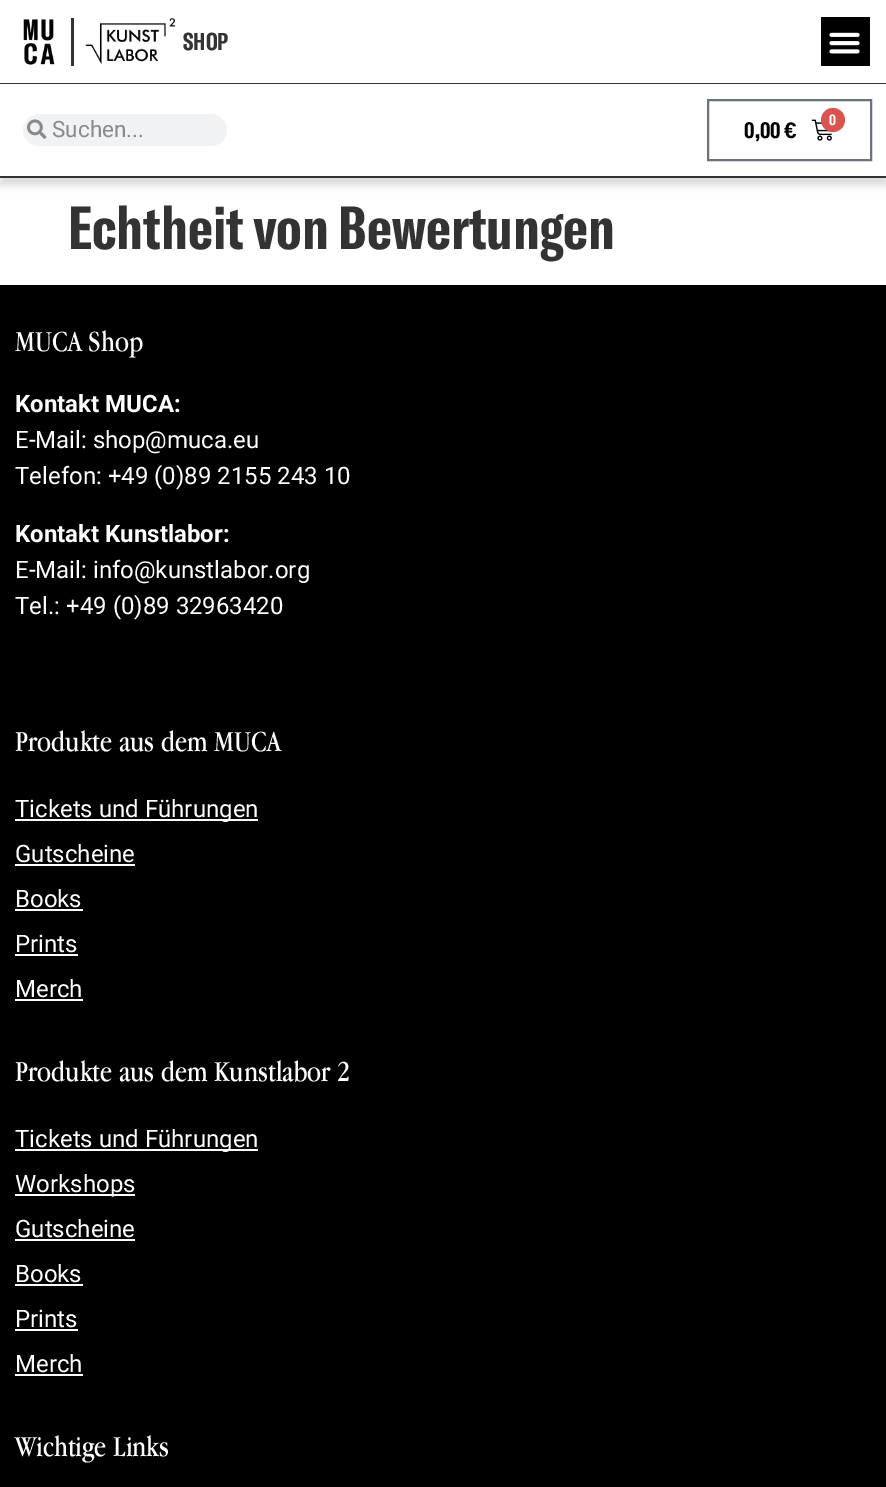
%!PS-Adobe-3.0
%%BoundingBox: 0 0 886 1487
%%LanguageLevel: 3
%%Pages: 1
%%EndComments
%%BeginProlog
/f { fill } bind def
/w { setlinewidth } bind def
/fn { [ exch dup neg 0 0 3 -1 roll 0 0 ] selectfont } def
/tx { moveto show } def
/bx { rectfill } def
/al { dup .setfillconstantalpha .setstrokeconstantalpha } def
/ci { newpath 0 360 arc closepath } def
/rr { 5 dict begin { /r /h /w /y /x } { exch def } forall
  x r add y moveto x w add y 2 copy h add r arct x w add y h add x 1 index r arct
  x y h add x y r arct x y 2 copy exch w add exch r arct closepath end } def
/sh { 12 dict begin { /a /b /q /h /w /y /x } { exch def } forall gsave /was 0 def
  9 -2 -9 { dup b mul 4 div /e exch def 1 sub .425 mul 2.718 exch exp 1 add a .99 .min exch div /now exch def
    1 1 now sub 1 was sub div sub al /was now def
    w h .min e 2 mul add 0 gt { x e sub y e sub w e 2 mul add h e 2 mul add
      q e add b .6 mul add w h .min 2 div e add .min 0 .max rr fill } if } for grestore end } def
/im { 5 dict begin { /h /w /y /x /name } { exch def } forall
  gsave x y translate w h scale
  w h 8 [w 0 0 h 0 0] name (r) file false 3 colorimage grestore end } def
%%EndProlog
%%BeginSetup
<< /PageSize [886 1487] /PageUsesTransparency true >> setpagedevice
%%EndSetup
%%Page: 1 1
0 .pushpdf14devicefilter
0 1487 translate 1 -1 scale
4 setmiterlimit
1 setgray
0 0 886 1487 bx
0.2 setgray
0 83 886 1 bx
71 18 3 48 bx
(image0.raw) 23 19 32 46 im
(image1.raw) 85 18 91 46 im
/GTAmerica-Bold 24 fn
(SHOP) 183 50 tx
0 setgray
821 17 49 49 bx
(image2.raw) 829 32 31 22 im
0 92 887 93 0 4 0.15 sh
1 setgray
0 86 886 90 bx
0.2 setgray
0 176 886 2 bx
0.945 0.949 0.953 setrgbcolor
23 114 204 32 16 rr f
(image3.raw) 27 119 20 20 im
/Roboto-Regular 22.5 fn
0.525 0.541 0.557 setrgbcolor
(Suchen...) 52 137 tx
0.412 0.447 0.49 setrgbcolor
2 w
708 100 163 60 rectstroke
(image4.raw) 811 119 21 22 im
0.851 0.325 0.31 setrgbcolor
833 120 12 ci f
/GTAmerica-Bold 15 fn
1 setgray
(0) 829 125 tx
/GTAmerica-Bold 22.5 fn
0 setgray
(0,00) 744 138 tx
/LiberationSans-Bold 22.5 fn
(€) 784 138 tx
/GTAmerica-Bold 60 fn
0.2 setgray
(Echtheit von Bewertungen) 68 249 tx
0 setgray
0 285 886 1202 bx
/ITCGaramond-Regular 30 fn
1 setgray
(MUCA Shop) 15 351 tx
/Roboto-Bold 24 fn
(Kontakt MUCA:) 15 412 tx
/Roboto-Regular 24 fn
(E-Mail: shop@muca.eu) 15 448 tx
(Telefon: +49 \(0\)89 2155 243 10) 15 484 tx
/Roboto-Bold 24 fn
(Kontakt Kunstlabor:) 15 542 tx
/Roboto-Regular 24 fn
(E-Mail: info@kunstlabor.org) 15 578 tx
(Tel.: +49 \(0\)89 32963420) 15 614 tx
/ITCGaramond-Regular 30 fn
(Produkte aus dem MUCA) 15 751 tx
15 819 243 2 bx
/Roboto-Regular 24 fn
(Tickets und Führungen) 15 817 tx
(Gutscheine) 15 862 tx
15 864 120 2 bx
(Books) 15 907 tx
15 909 68 2 bx
(Prints) 15 952 tx
15 954 63 2 bx
(Merch) 15 997 tx
15 999 68 2 bx
/ITCGaramond-Regular 30 fn
(Produkte aus dem Kunstlabor 2) 15 1081 tx
15 1149 243 2 bx
/Roboto-Regular 24 fn
(Tickets und Führungen) 15 1147 tx
15 1194 120 2 bx
(Workshops) 15 1192 tx
(Gutscheine) 15 1237 tx
15 1239 120 2 bx
(Books) 15 1282 tx
15 1284 68 2 bx
(Prints) 15 1327 tx
15 1329 63 2 bx
(Merch) 15 1372 tx
15 1374 68 2 bx
/ITCGaramond-Regular 30 fn
(Wichtige Links) 15 1456 tx
.poppdf14devicefilter showpage
%%EOF
